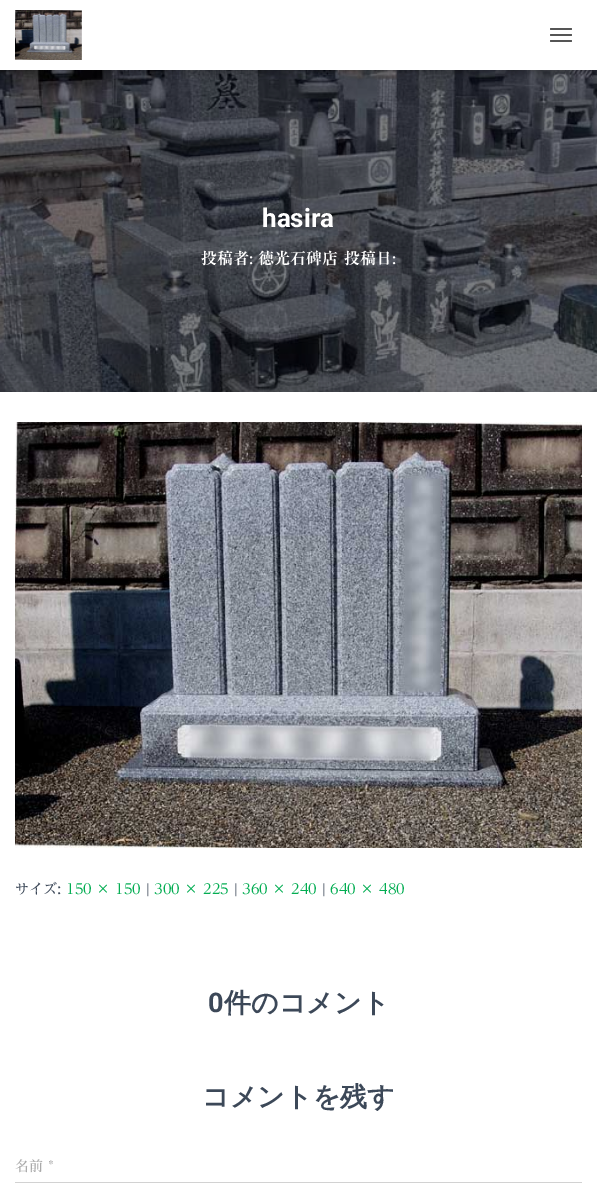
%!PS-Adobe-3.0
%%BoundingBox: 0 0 597 1190
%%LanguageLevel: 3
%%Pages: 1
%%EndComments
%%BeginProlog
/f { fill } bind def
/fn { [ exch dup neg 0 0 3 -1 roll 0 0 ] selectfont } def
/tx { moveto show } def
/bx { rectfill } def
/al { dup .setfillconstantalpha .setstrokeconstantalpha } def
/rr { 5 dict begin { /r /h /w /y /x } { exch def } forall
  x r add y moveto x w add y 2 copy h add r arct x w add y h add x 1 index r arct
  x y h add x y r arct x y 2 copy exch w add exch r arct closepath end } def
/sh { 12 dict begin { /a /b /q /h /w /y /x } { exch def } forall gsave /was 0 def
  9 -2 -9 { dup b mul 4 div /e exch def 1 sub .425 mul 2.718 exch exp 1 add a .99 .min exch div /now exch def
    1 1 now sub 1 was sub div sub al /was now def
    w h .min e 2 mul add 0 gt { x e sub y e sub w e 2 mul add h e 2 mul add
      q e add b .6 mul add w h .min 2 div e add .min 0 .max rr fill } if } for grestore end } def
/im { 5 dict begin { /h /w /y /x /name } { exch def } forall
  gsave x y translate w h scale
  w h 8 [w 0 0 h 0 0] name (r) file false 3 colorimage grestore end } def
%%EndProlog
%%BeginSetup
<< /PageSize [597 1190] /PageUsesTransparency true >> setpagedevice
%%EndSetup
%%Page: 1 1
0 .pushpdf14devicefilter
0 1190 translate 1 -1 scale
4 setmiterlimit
1 setgray
0 0 597 1190 bx
(image1.raw) 0 70 597 322 im
0 setgray
2 6 593 66 0 2.5 0.1 sh
0 1 597 70 0 5 0.12 sh
6 7 585 58 0 5 0.42 sh
1 setgray
0 0 597 70 bx
(image0.raw) 15 10 67 50 im
0.333 setgray
550 28 22 2 1 rr f
550 34 22 2 1 rr f
550 40 22 2 1 rr f
/Roboto-Bold 26 fn
1 setgray
(hasira) 262 227 tx
/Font-Medium 16 fn
(投稿者: 徳光石碑店 投稿日:) 201 264 tx
0 setgray
-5 393 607 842 0 15 0.12 sh
1 setgray
0 392 597 798 bx
(image2.raw) 15 422 567 426 im
/Font-Regular 14 fn
0.235 0.282 0.345 setrgbcolor
(サイズ:) 15 894 tx
0.012 0.678 0.322 setrgbcolor
(150 × 150) 66 894 tx
0.235 0.282 0.345 setrgbcolor
(|) 146 894 tx
0.012 0.678 0.322 setrgbcolor
(300 × 225) 154 894 tx
0.235 0.282 0.345 setrgbcolor
(|) 234 894 tx
0.012 0.678 0.322 setrgbcolor
(360 × 240) 242 894 tx
0.235 0.282 0.345 setrgbcolor
(|) 322 894 tx
0.012 0.678 0.322 setrgbcolor
(640 × 480) 330 894 tx
/RobotoSlab-Bold 27 fn
0.235 0.282 0.345 setrgbcolor
(0) 208 1012 tx
/WenQuanYiZenHei-Bold 27 fn
(件のコメント) 224 1012 tx
(コメントを残す) 202 1106 tx
/Font-Regular 14 fn
0.667 setgray
(名前 *) 15 1171 tx
0.824 setgray
15 1182 567 1 bx
.poppdf14devicefilter showpage
%%EOF
